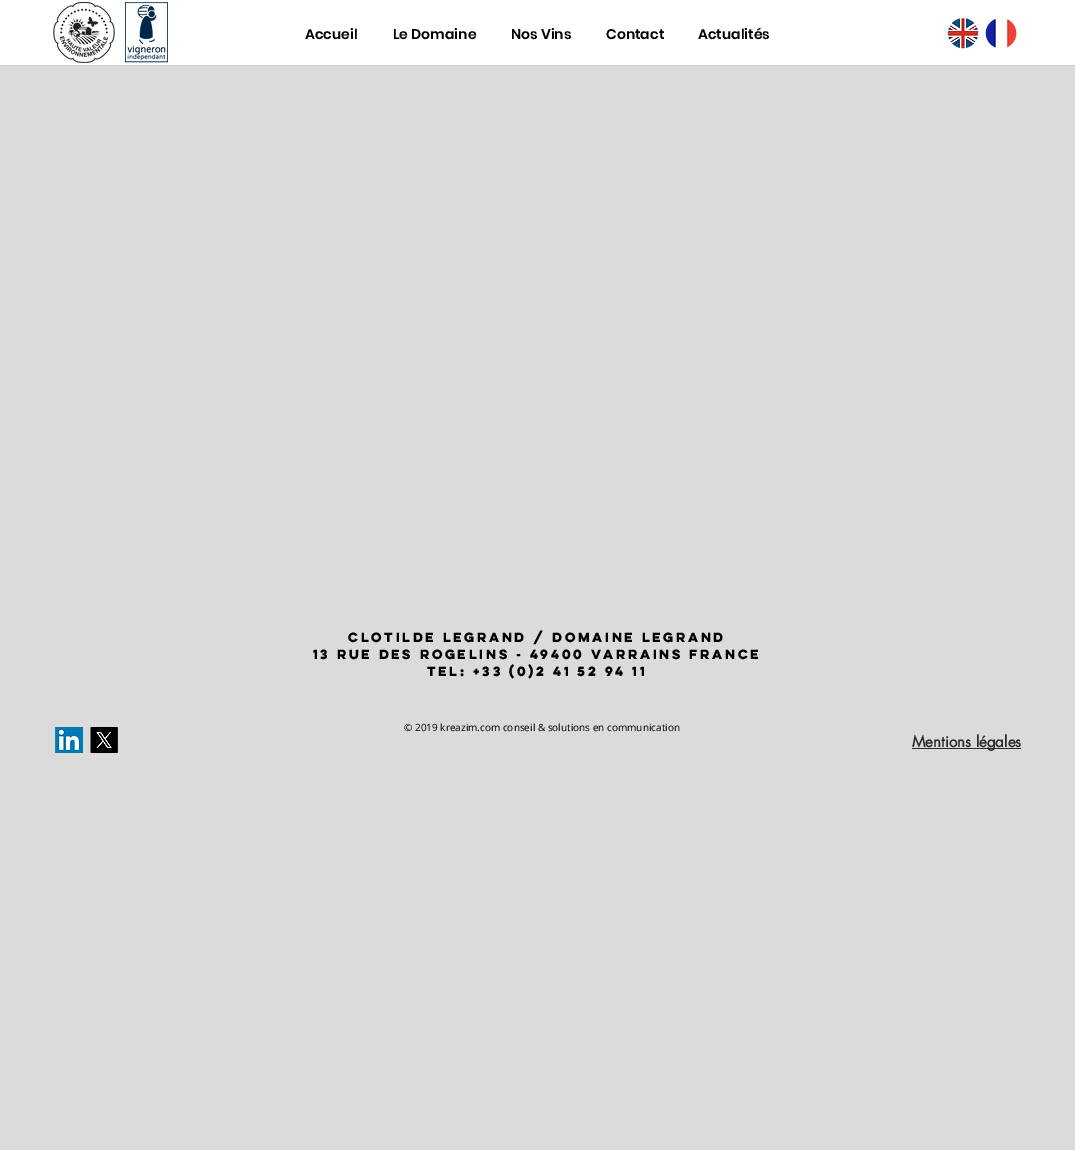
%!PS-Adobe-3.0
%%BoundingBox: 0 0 1075 1150
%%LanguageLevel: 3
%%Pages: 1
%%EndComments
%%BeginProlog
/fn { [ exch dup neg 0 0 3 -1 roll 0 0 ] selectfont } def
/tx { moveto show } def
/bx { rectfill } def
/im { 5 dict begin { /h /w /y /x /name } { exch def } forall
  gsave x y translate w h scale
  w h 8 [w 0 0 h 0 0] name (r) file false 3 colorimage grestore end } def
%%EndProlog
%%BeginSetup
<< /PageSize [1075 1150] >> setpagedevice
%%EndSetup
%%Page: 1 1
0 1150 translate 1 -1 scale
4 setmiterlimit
0.859 setgray
0 0 1075 1150 bx
0.816 setgray
-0.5 -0.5 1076 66 rectstroke
1 setgray
0 0 1075 65 bx
(image0.raw) 53 2 62 61 im
(image1.raw) 125 2 43 61 im
/Poppins-SemiBold 14 fn
0 setgray
(Accueil) 305 39 tx
(Le Domaine) 393 39 tx
(Nos Vins) 511 39 tx
(Contact) 606 39 tx
(Actualités) 698 39 tx
(image2.raw) 947 18 32 31 im
(image3.raw) 985 18 32 30 im
/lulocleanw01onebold-Bold 12 fn
(Clotilde Legrand / Domaine Legrand) 348 642 tx
(13 rue des Rogelins - 49400 Varrains FRANCE) 313 659 tx
(Tel: +33 \(0\)2 41 52 94 11) 427 676 tx
(image4.raw) 55 727 28 26 im
(image5.raw) 90 727 28 26 im
/OpenSans-Regular 10 fn
(© 2019 kreazim.com conseil & solutions en communication) 404 731 tx
0.161 setgray
912 748 109 1 bx
/futura-Bold 15 fn
(Mentions légales) 912 747 tx
showpage
%%EOF
